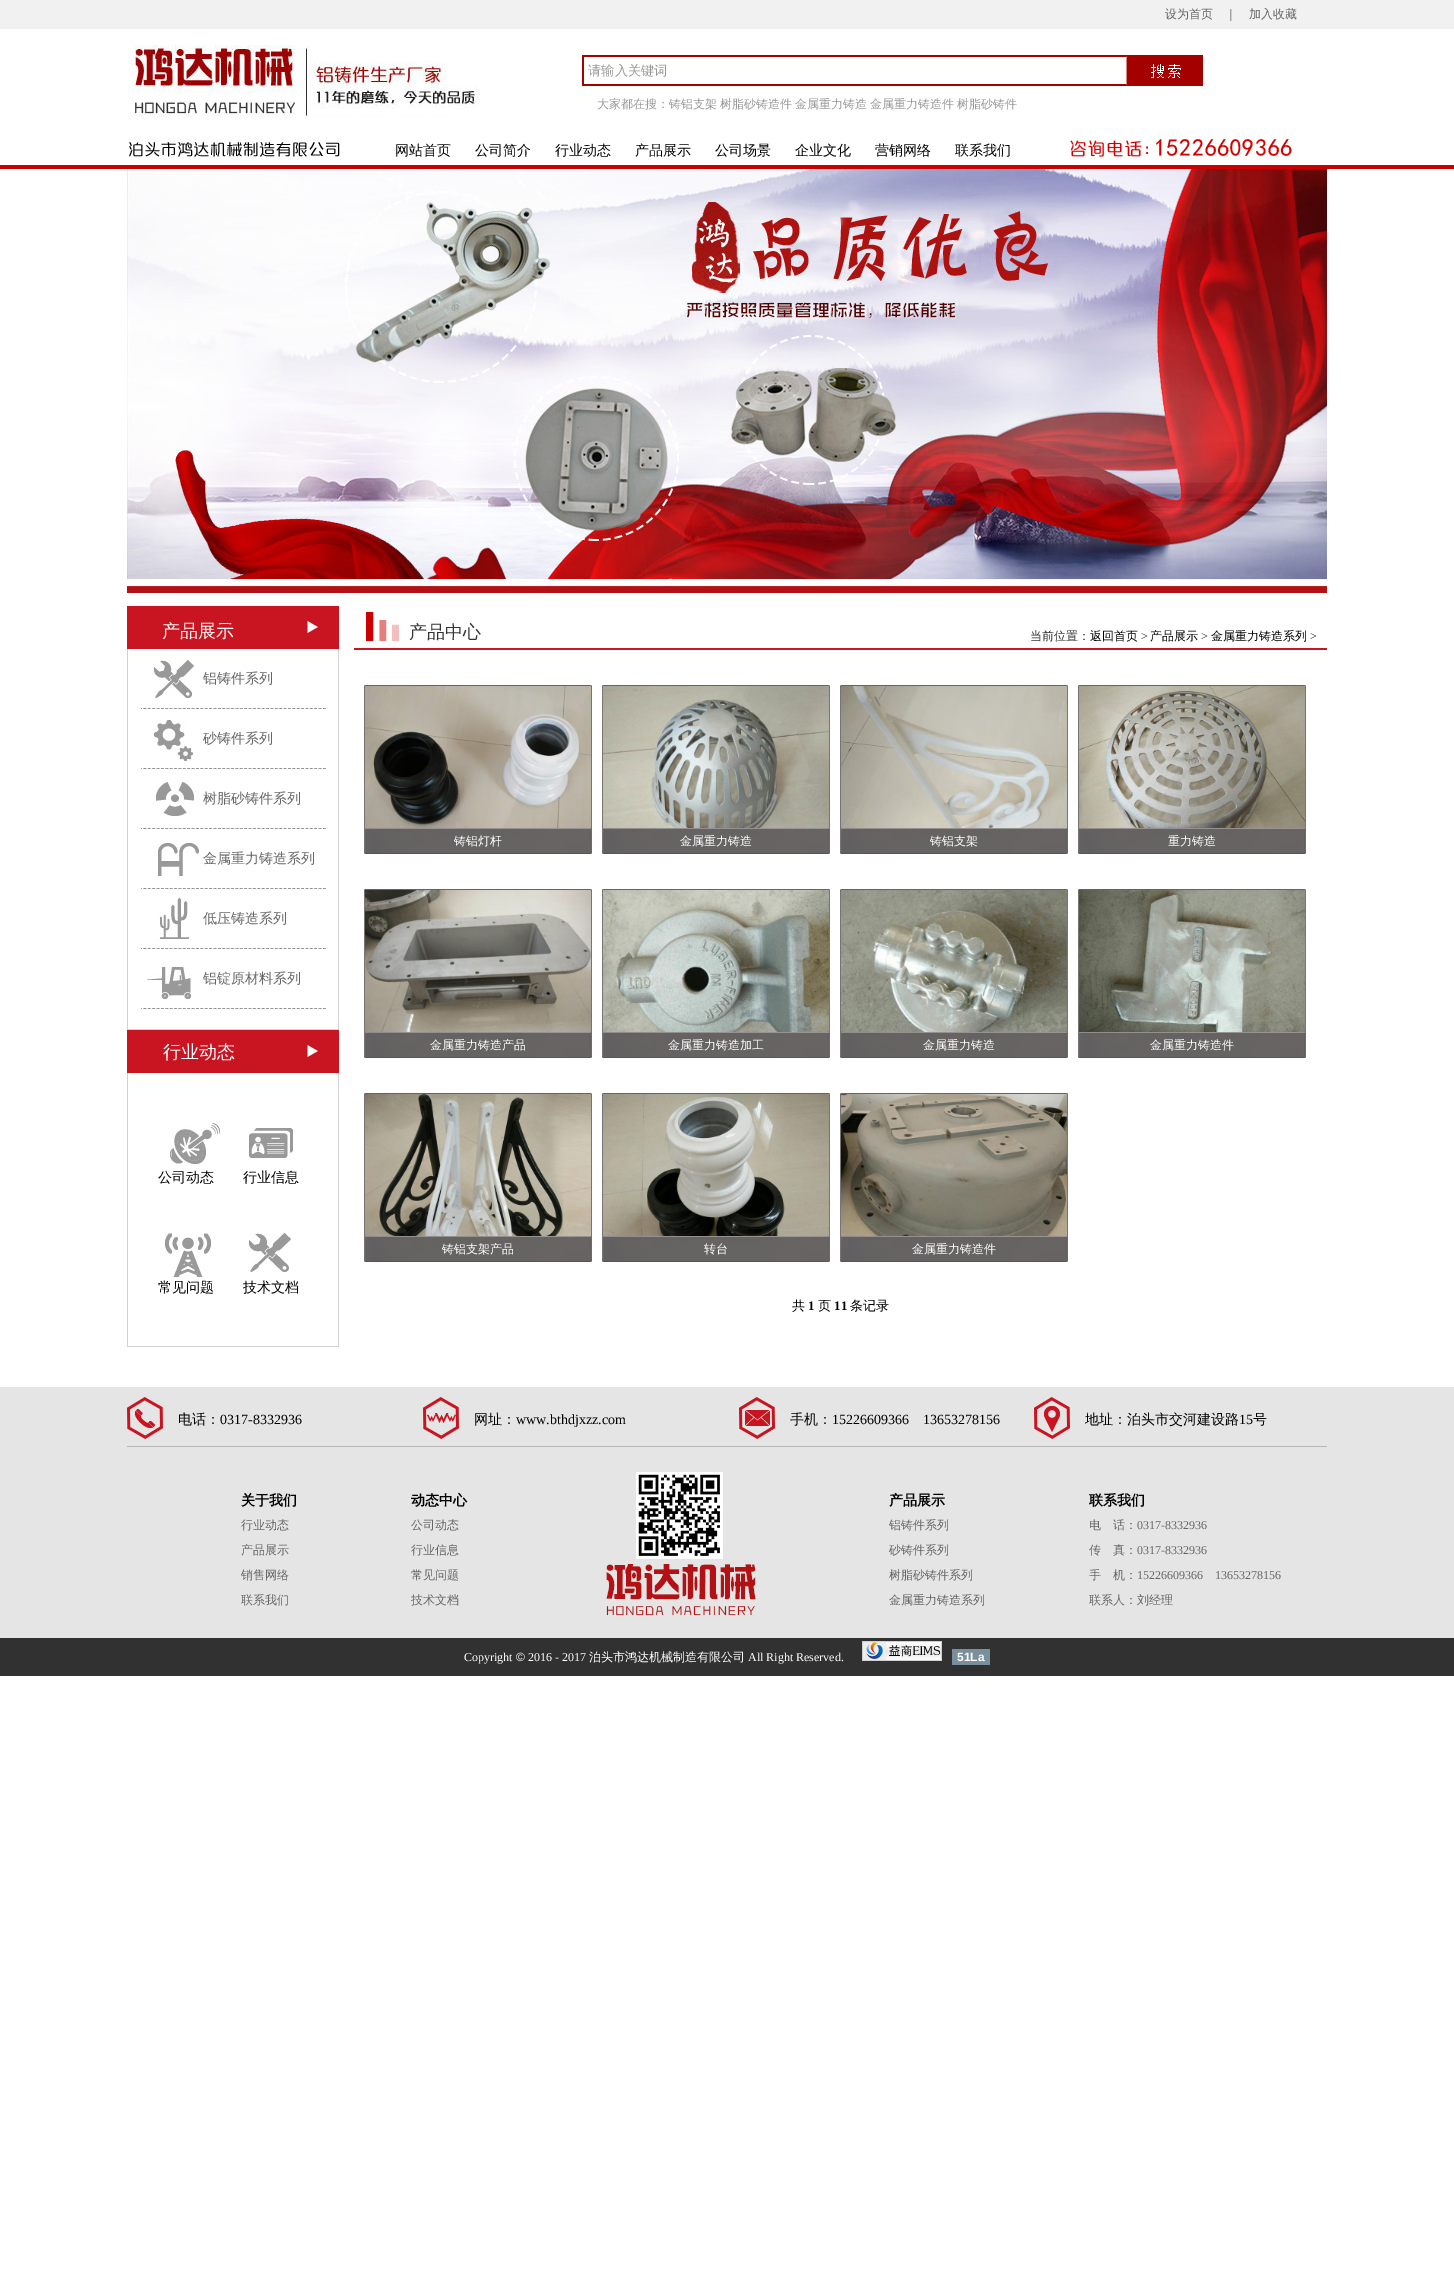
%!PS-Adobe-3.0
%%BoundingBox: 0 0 1454 2294
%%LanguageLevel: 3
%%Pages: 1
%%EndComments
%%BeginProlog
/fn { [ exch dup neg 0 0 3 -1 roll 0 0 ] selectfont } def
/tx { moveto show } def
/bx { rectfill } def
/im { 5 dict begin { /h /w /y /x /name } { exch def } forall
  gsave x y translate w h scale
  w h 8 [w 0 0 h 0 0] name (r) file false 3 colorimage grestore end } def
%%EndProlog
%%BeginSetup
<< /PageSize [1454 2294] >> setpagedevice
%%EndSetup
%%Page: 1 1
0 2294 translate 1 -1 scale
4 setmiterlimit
1 setgray
0 0 1454 2294 bx
(image0.raw) 0 0 1454 169 im
/WenQuanYiZenHei-Medium 12 fn
0.4 setgray
(设为首页) 1165 18 tx
(｜) 1225 18 tx
(加入收藏) 1249 18 tx
(image1.raw) 135 45 344 72 im
0.643 0 0 setrgbcolor
582 55 544 2 bx
582 84 544 2 bx
582 55 2 31 bx
/WenQuanYiZenHei-Medium 13.25 fn
0.6 setgray
(请输入关键词) 588 75 tx
(image2.raw) 1126 55 77 31 im
/WenQuanYiZenHei-Medium 12 fn
(大家都在搜：铸铝支架) 597 108 tx
(树脂砂铸造件) 720 108 tx
(金属重力铸造) 795 108 tx
(金属重力铸造件) 870 108 tx
(树脂砂铸件) 957 108 tx
(image3.raw) 129 142 211 15 im
/WenQuanYiZenHei-Medium 14 fn
0 setgray
(网站首页) 395 155 tx
(公司简介) 475 155 tx
(行业动态) 555 155 tx
(产品展示) 635 155 tx
(公司场景) 715 155 tx
(企业文化) 795 155 tx
(营销网络) 875 155 tx
(联系我们) 955 155 tx
(image4.raw) 1070 136 222 23 im
(image5.raw) 127 169 1200 422 im
(image6.raw) 127 591 1200 2 im
0.788 0.078 0.129 setrgbcolor
127 606 212 43 bx
(image7.raw) 307 621 11 12 im
/WenQuanYiZenHei-Medium 18 fn
1 setgray
(产品展示) 162 637 tx
0.824 setgray
338 649 1 381 bx
127 1029 212 1 bx
127 649 1 381 bx
(image8.raw) 141 707 185 2 im
(image9.raw) 154 658 40 40 im
/WenQuanYiZenHei-Medium 14 fn
0.4 setgray
(铝铸件系列) 203 683 tx
(image8.raw) 141 767 185 2 im
(image10.raw) 154 719 39 45 im
(砂铸件系列) 203 743 tx
(image8.raw) 141 827 185 2 im
(image11.raw) 155 779 39 37 im
(树脂砂铸件系列) 203 803 tx
(image8.raw) 141 887 185 2 im
(image12.raw) 157 842 42 34 im
(金属重力铸造系列) 203 863 tx
(image8.raw) 141 947 185 2 im
(image13.raw) 155 898 36 45 im
(低压铸造系列) 203 923 tx
(image8.raw) 141 1007 185 2 im
(image14.raw) 147 967 44 37 im
(铝锭原材料系列) 203 983 tx
0.788 0.078 0.129 setrgbcolor
127 1030 212 43 bx
(image7.raw) 307 1045 11 12 im
/WenQuanYiZenHei-Medium 18 fn
1 setgray
(行业动态) 163 1058 tx
0.824 setgray
338 1073 1 274 bx
127 1346 212 1 bx
127 1073 1 274 bx
(image15.raw) 170 1123 50 41 im
/WenQuanYiZenHei-Medium 14 fn
0 setgray
(公司动态) 158 1182 tx
(image16.raw) 249 1128 44 30 im
(行业信息) 243 1182 tx
(image17.raw) 165 1233 46 44 im
(常见问题) 158 1292 tx
(image18.raw) 249 1233 42 39 im
(技术文档) 243 1292 tx
(image19.raw) 366 612 33 29 im
0.788 0.078 0.129 setrgbcolor
354 648 973 2 bx
/WenQuanYiZenHei-Medium 18 fn
0.2 setgray
(产品中心) 409 638 tx
/WenQuanYiZenHei-Medium 12 fn
(当前位置：) 1030 640 tx
0 setgray
(返回首页) 1090 640 tx
/LiberationSerif-Regular 12 fn
0.2 setgray
(>) 1141 640 tx
/WenQuanYiZenHei-Medium 12 fn
0 setgray
(产品展示) 1150 640 tx
/LiberationSerif-Regular 12 fn
0.2 setgray
(>) 1201 640 tx
/WenQuanYiZenHei-Medium 12 fn
0 setgray
(金属重力铸造系列) 1211 640 tx
/LiberationSerif-Regular 12 fn
0.2 setgray
(>) 1310 640 tx
(image20.raw) 365 686 226 142 im
(image21.raw) 364 685 228 169 im
/WenQuanYiZenHei-Medium 12 fn
1 setgray
(铸铝灯杆) 454 845 tx
(image22.raw) 603 686 226 142 im
(image23.raw) 602 685 228 169 im
(金属重力铸造) 680 845 tx
(image24.raw) 841 686 226 142 im
(image25.raw) 840 685 228 169 im
(铸铝支架) 930 845 tx
(image26.raw) 1079 686 226 142 im
(image27.raw) 1078 685 228 169 im
(重力铸造) 1168 845 tx
(image28.raw) 365 890 226 142 im
(image29.raw) 364 889 228 169 im
(金属重力铸造产品) 430 1049 tx
(image30.raw) 603 890 226 142 im
(image31.raw) 602 889 228 169 im
(金属重力铸造加工) 668 1049 tx
(image32.raw) 841 890 226 142 im
(image33.raw) 840 889 228 169 im
(金属重力铸造) 923 1049 tx
(image34.raw) 1079 890 226 142 im
(image35.raw) 1078 889 228 169 im
(金属重力铸造件) 1150 1049 tx
(image36.raw) 365 1094 226 142 im
(image37.raw) 364 1093 228 169 im
(铸铝支架产品) 442 1253 tx
(image38.raw) 603 1094 226 142 im
(image39.raw) 602 1093 228 169 im
(转台) 704 1253 tx
(image40.raw) 841 1094 226 142 im
(image41.raw) 840 1093 228 169 im
(金属重力铸造件) 912 1253 tx
/WenQuanYiZenHei-Medium 13 fn
0 setgray
(共) 792 1310 tx
/LiberationSerif-Bold 13 fn
(1) 808 1310 tx
/WenQuanYiZenHei-Medium 13 fn
(页) 818 1310 tx
/LiberationSerif-Bold 13 fn
(11) 834 1310 tx
/WenQuanYiZenHei-Medium 13 fn
(条记录) 850 1310 tx
(image42.raw) 0 1387 1454 289 im
0.71 setgray
127 1446 1200 1 bx
(image43.raw) 127 1397 36 42 im
/WenQuanYiZenHei-Medium 14 fn
0 setgray
(电话：) 178 1424 tx
/LiberationSerif-Regular 14 fn
(0317-8332936) 220 1424 tx
(image44.raw) 423 1397 36 42 im
/WenQuanYiZenHei-Medium 14 fn
(网址：) 474 1424 tx
/LiberationSerif-Regular 14 fn
(www.bthdjxzz.com) 516 1424 tx
(image45.raw) 739 1397 36 42 im
/WenQuanYiZenHei-Medium 14 fn
(手机：) 790 1424 tx
/LiberationSerif-Regular 14 fn
(15226609366) 832 1424 tx
(13653278156) 923 1424 tx
(image46.raw) 1034 1397 36 42 im
/WenQuanYiZenHei-Medium 14 fn
(地址：泊头市交河建设路) 1085 1424 tx
/LiberationSerif-Regular 14 fn
(15) 1239 1424 tx
/WenQuanYiZenHei-Medium 14 fn
(号) 1253 1424 tx
/WenQuanYiZenHei-Bold 14 fn
(关于我们) 241 1505 tx
/WenQuanYiZenHei-Medium 12 fn
0.4 setgray
(行业动态) 241 1529 tx
(产品展示) 241 1554 tx
(销售网络) 241 1579 tx
(联系我们) 241 1604 tx
/WenQuanYiZenHei-Bold 14 fn
0 setgray
(动态中心) 411 1505 tx
/WenQuanYiZenHei-Medium 12 fn
0.4 setgray
(公司动态) 411 1529 tx
(行业信息) 411 1554 tx
(常见问题) 411 1579 tx
(技术文档) 411 1604 tx
(image47.raw) 606 1472 150 144 im
/WenQuanYiZenHei-Bold 14 fn
0 setgray
(产品展示) 889 1505 tx
/WenQuanYiZenHei-Medium 12 fn
0.4 setgray
(铝铸件系列) 889 1529 tx
(砂铸件系列) 889 1554 tx
(树脂砂铸件系列) 889 1579 tx
(金属重力铸造系列) 889 1604 tx
/WenQuanYiZenHei-Bold 14 fn
0 setgray
(联系我们) 1089 1505 tx
/WenQuanYiZenHei-Medium 12 fn
0.4 setgray
(电　话：) 1089 1529 tx
/LiberationSerif-Regular 12 fn
(0317-8332936) 1137 1529 tx
/WenQuanYiZenHei-Medium 12 fn
(传　真：) 1089 1554 tx
/LiberationSerif-Regular 12 fn
(0317-8332936) 1137 1554 tx
/WenQuanYiZenHei-Medium 12 fn
(手　机：) 1089 1579 tx
/LiberationSerif-Regular 12 fn
(15226609366) 1137 1579 tx
(13653278156) 1215 1579 tx
/WenQuanYiZenHei-Medium 12 fn
(联系人：刘经理) 1089 1604 tx
/LiberationSerif-Regular 12 fn
1 setgray
(Copyright) 464 1661 tx
/LiberationSans-Regular 12 fn
(©) 516 1661 tx
/LiberationSerif-Regular 12 fn
(2016 - 2017) 528 1661 tx
/WenQuanYiZenHei-Medium 12 fn
(泊头市鸿达机械制造有限公司) 589 1661 tx
/LiberationSerif-Regular 12 fn
(All Right Reserved.) 748 1661 tx
(image48.raw) 862 1641 80 20 im
0.475 0.565 0.612 setrgbcolor
952 1649 38 16 bx
/LiberationSans-Bold 12 fn
1 setgray
(51La) 957 1661 tx
showpage
%%EOF
